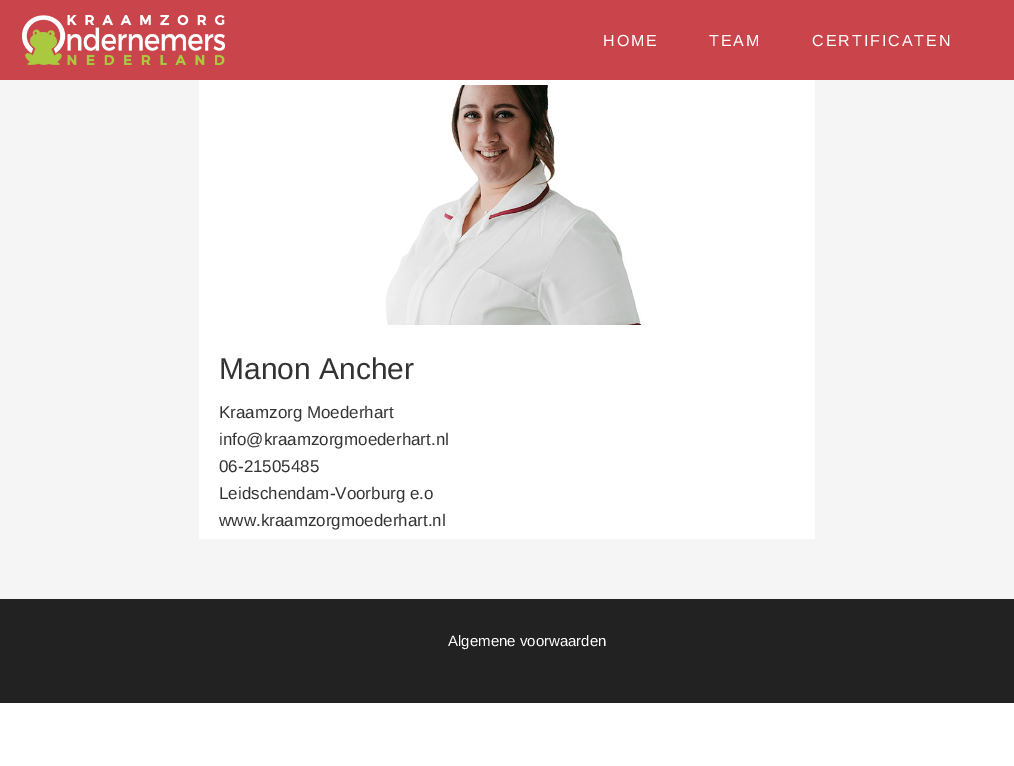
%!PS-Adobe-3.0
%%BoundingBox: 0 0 1014 766
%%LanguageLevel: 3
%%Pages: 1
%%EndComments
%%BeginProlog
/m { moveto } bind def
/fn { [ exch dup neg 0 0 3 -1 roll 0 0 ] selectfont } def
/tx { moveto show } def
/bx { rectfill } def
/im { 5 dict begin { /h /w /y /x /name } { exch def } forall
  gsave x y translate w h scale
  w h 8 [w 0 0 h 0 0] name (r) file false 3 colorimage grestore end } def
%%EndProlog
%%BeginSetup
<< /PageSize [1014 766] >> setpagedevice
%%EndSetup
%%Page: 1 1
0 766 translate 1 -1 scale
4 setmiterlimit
1 setgray
0 0 1014 766 bx
0.792 0.271 0.294 setrgbcolor
0 0 1014 80 bx
(image0.raw) 22 15 203 50 im
/LiberationSans-Regular 16 fn
1 setgray
603 46 m 2 0 (HOME) ashow
709 46 m 2 0 (TEAM) ashow
812 46 m 2 0 (CERTIFICATEN) ashow
0.961 setgray
0 80 1014 519 bx
1 setgray
199 80 616 459 bx
(image1.raw) 386 85 256 240 im
/LiberationSans-Regular 30 fn
0.2 setgray
(Manon Ancher) 219 379 tx
/LiberationSans-Regular 17 fn
(Kraamzorg Moederhart) 219 418 tx
(info@kraamzorgmoederhart.nl) 219 445 tx
(06-21505485) 219 472 tx
(Leidschendam-Voorburg e.o) 219 499 tx
(www.kraamzorgmoederhart.nl) 219 526 tx
0.133 setgray
0 599 1014 104 bx
/LiberationSans-Regular 15 fn
1 setgray
(Algemene voorwaarden) 448 646 tx
showpage
%%EOF
